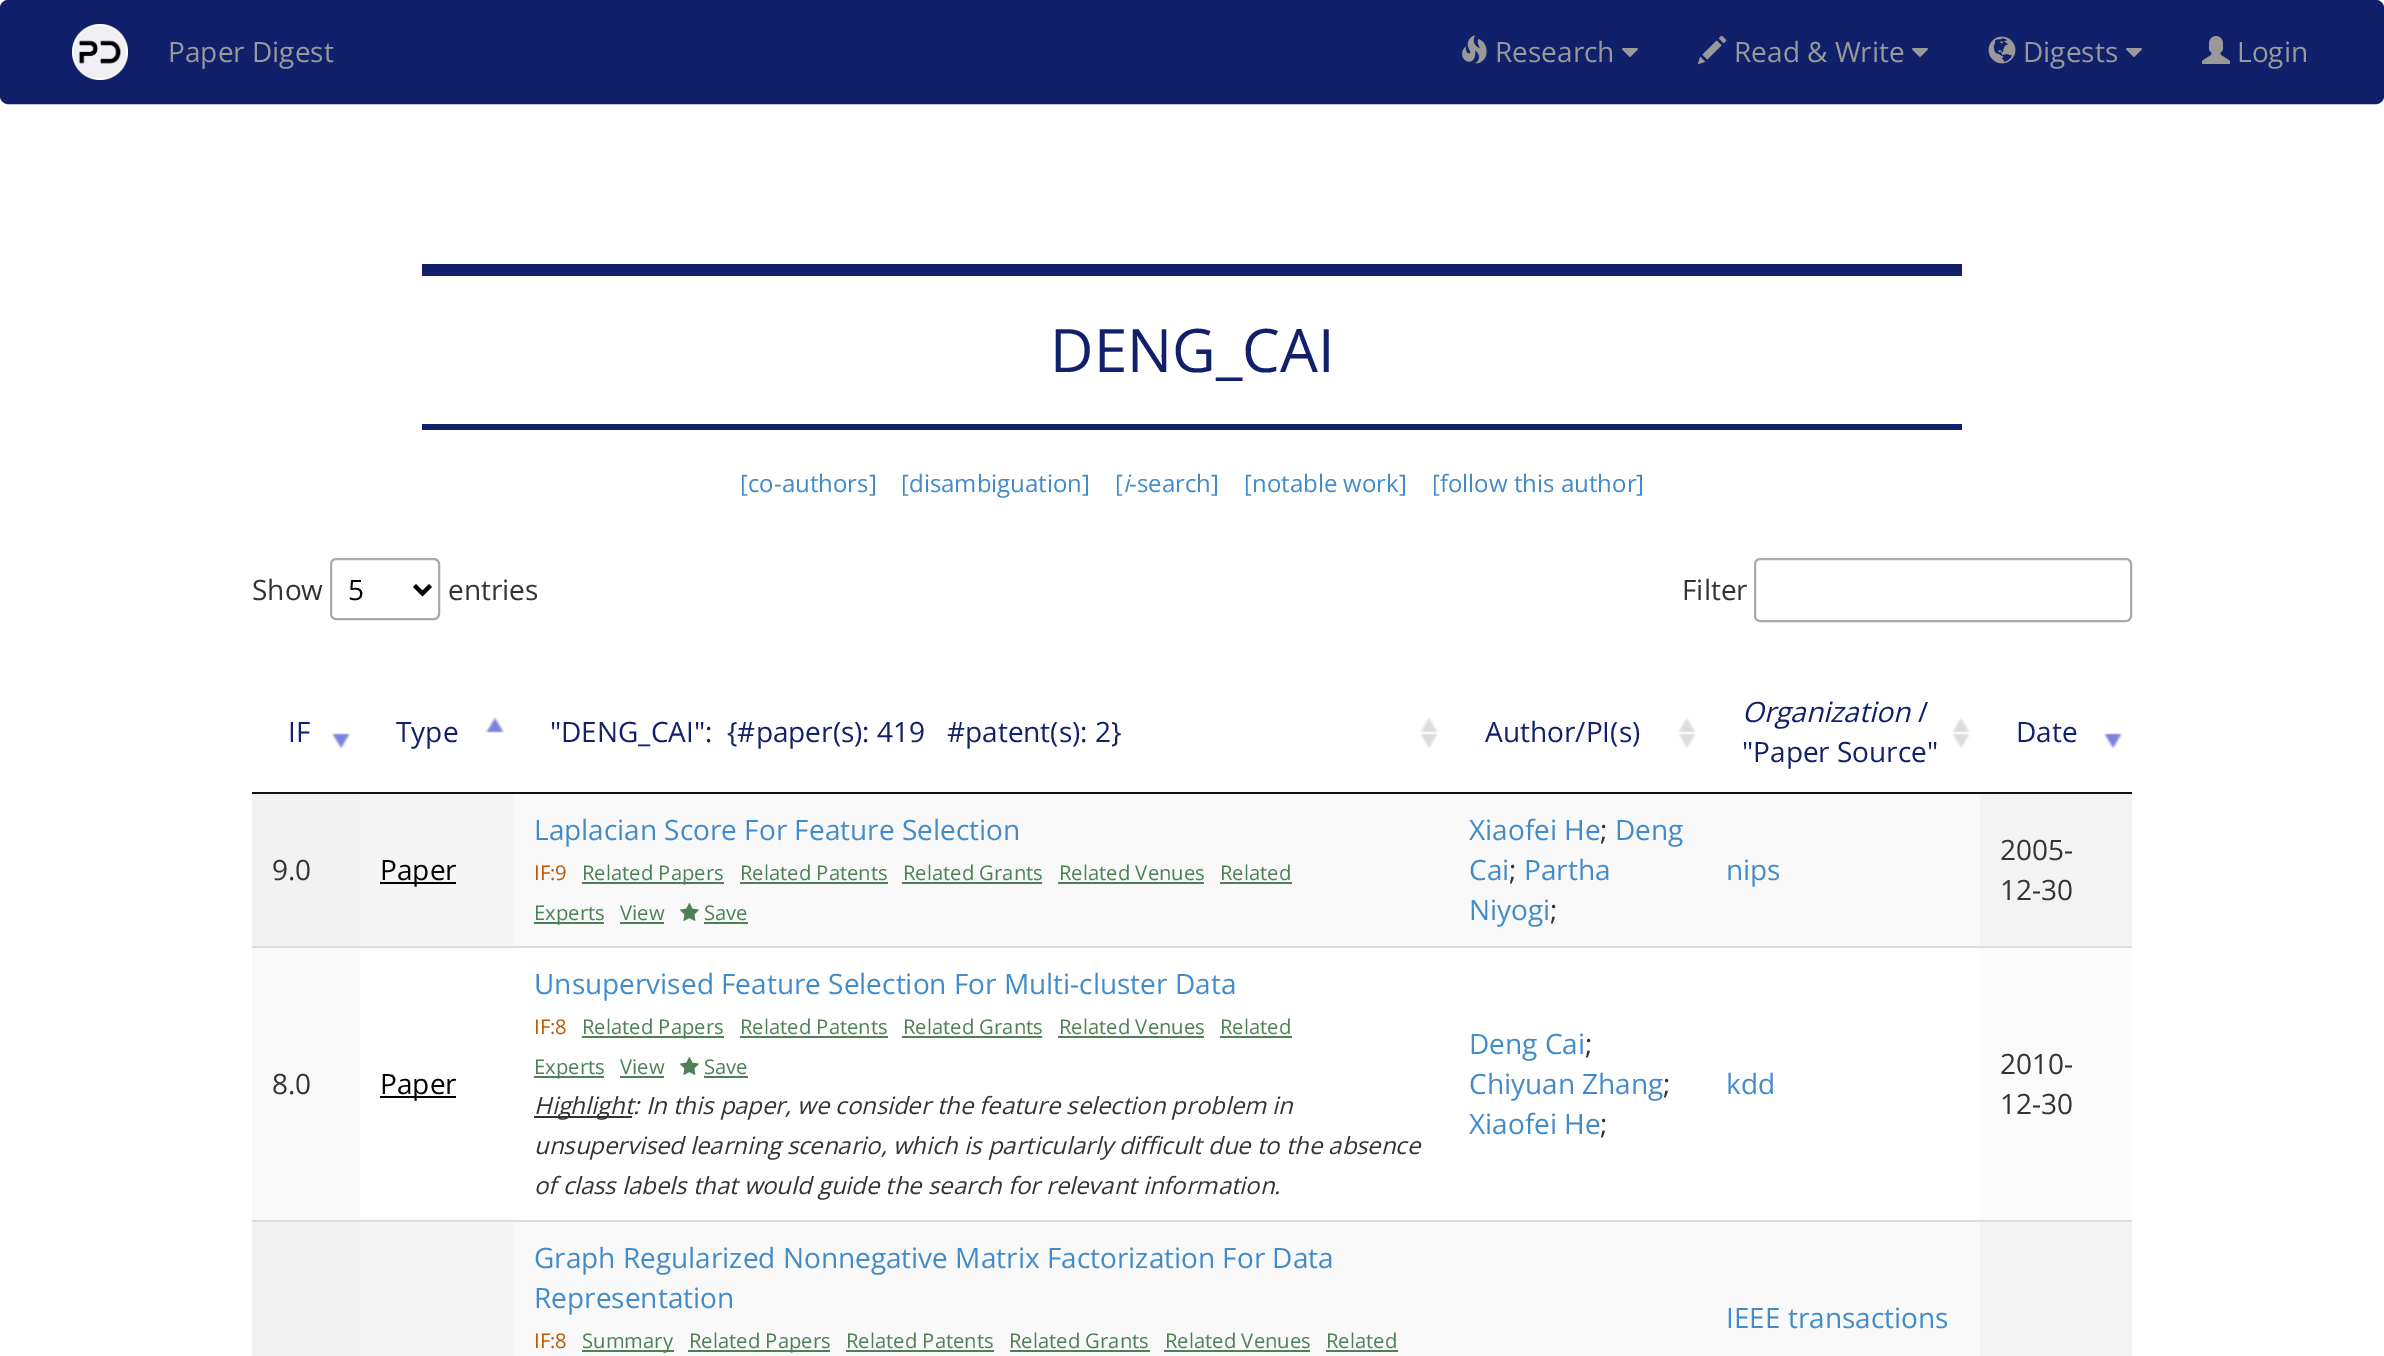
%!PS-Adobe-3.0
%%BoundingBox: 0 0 2384 1356
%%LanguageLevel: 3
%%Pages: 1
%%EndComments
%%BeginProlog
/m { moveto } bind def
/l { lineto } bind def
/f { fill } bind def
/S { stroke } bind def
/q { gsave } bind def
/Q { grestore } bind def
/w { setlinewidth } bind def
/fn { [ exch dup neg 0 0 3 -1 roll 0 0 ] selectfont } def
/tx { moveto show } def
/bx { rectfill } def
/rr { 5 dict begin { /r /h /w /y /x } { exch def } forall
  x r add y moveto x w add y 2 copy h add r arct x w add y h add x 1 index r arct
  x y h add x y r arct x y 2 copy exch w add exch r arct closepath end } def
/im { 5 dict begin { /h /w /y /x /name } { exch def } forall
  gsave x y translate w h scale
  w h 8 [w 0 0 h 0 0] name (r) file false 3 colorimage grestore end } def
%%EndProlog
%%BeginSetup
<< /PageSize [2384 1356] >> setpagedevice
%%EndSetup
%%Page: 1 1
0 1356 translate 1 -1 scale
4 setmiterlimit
1 setgray
0 0 2384 1356 bx
0.063 0.125 0.42 setrgbcolor
1 1 2382 102 7 rr q f Q
2 w
S
(image0.raw) 72 24 56 56 im
/OpenSans-Regular 28 fn
0.6 setgray
(Paper Digest) 168 62 tx
(image1.raw) 1462 35 25 29 im
(Research) 1495 62 tx
(image2.raw) 1622 48 16 9 im
(image3.raw) 1697 35 30 30 im
(Read & Write) 1734 62 tx
(image2.raw) 1912 48 16 9 im
(image4.raw) 1988 36 28 28 im
(Digests) 2023 62 tx
(image2.raw) 2126 48 16 9 im
(image5.raw) 2202 36 28 28 im
(Login) 2237 62 tx
0.063 0.125 0.42 setrgbcolor
422 264 1540 12 bx
/OpenSans-Regular 60 fn
(DENG_CAI) 1050 372 tx
422 424 1540 6 bx
/OpenSans-Regular 24 fn
0.259 0.545 0.792 setrgbcolor
([co-authors]) 740 492 tx
([disambiguation]) 901 492 tx
([) 1115 492 tx
/OpenSans-Italic 24 fn
(i) 1123 492 tx
/OpenSans-Regular 24 fn
(-search]) 1129 492 tx
([notable work]) 1244 492 tx
([follow this author]) 1432 492 tx
/OpenSans-Regular 28 fn
0.2 setgray
(Show) 252 600 tx
0.667 setgray
331 559 108 60 5 rr S
0 setgray
4 w
414.5 585.5 m 422.5 593.5 l 430.5 585.5 l S
(5) 348 600 tx
0.2 setgray
(entries) 448 600 tx
(Filter) 1682 600 tx
0.667 setgray
2 w
1755 559 376 62 5 rr S
(image6.raw) 331 733 20 16 im
0.067 setgray
252 792 1880 2 bx
0.063 0.125 0.42 setrgbcolor
(IF) 288 742 tx
(image7.raw) 485 717 20 16 im
(Type) 396 742 tx
(image8.raw) 1420 717 18 32 im
("DENG_CAI":  {#paper\(s\): 419   #patent\(s\): 2}) 550 742 tx
(image8.raw) 1678 717 18 32 im
(Author/PI\(s\)) 1485 742 tx
(image8.raw) 1952 717 18 32 im
/OpenSans-Italic 28 fn
(Organization) 1742 722 tx
/OpenSans-Regular 28 fn
(/) 1918 722 tx
("Paper Source") 1742 762 tx
(image6.raw) 2103 733 20 16 im
(Date) 2016 742 tx
0.976 setgray
514 794 1466 152 bx
0.945 setgray
252 794 108 152 bx
0.2 setgray
(9.0) 272 880 tx
0.961 setgray
360 794 154 152 bx
0 setgray
380 882 76 2 bx
(Paper) 380 880 tx
0.259 0.545 0.792 setrgbcolor
(Laplacian Score For Feature Selection) 534 840 tx
/OpenSans-Regular 20.25 fn
0.753 0.337 0 setrgbcolor
(IF:9) 534 880 tx
0.302 0.502 0.333 setrgbcolor
582 882 142 2 bx
(Related Papers) 582 880 tx
(Related Patents) 740 880 tx
740 882 148 2 bx
(Related Grants) 903 880 tx
902 882 140 2 bx
(Related Venues) 1059 880 tx
1058 882 146 2 bx
(Related) 1220 880 tx
1220 882 72 2 bx
534 922 70 2 bx
(Experts) 534 920 tx
(View) 620 920 tx
620 922 44 2 bx
(image9.raw) 680 903 19 18 im
(Save) 704 920 tx
704 922 44 2 bx
/OpenSans-Regular 28 fn
0.259 0.545 0.792 setrgbcolor
(Xiaofei He) 1469 840 tx
0.2 setgray
(;) 1600 840 tx
0.259 0.545 0.792 setrgbcolor
(Deng) 1615 840 tx
(Cai) 1469 880 tx
0.2 setgray
(;) 1509 880 tx
0.259 0.545 0.792 setrgbcolor
(Partha) 1524 880 tx
(Niyogi) 1469 920 tx
0.2 setgray
(;) 1550 920 tx
0.259 0.545 0.792 setrgbcolor
(nips) 1726 880 tx
0.953 setgray
1980 794 152 152 bx
0.2 setgray
(2005-) 2000 860 tx
(12-30) 2000 900 tx
0.976 setgray
252 948 108 272 bx
0.867 setgray
252 946 1880 2 bx
0.2 setgray
(8.0) 272 1094 tx
0 setgray
380 1096 76 2 bx
(Paper) 380 1094 tx
0.259 0.545 0.792 setrgbcolor
(Unsupervised Feature Selection For Multi-cluster Data) 534 994 tx
/OpenSans-Regular 20.25 fn
0.753 0.337 0 setrgbcolor
(IF:8) 534 1034 tx
0.302 0.502 0.333 setrgbcolor
582 1036 142 2 bx
(Related Papers) 582 1034 tx
(Related Patents) 740 1034 tx
740 1036 148 2 bx
(Related Grants) 903 1034 tx
902 1036 140 2 bx
(Related Venues) 1059 1034 tx
1058 1036 146 2 bx
(Related) 1220 1034 tx
1220 1036 72 2 bx
534 1076 70 2 bx
(Experts) 534 1074 tx
(View) 620 1074 tx
620 1076 44 2 bx
(image10.raw) 680 1057 19 18 im
(Save) 704 1074 tx
704 1076 44 2 bx
0.2 setgray
534 1116 98 2 bx
/OpenSans-Italic 23.8 fn
(Highlight: In this paper, we consider the feature selection problem in) 534 1114 tx
(unsupervised learning scenario, which is particularly difficult due to the absence) 534 1154 tx
(of class labels that would guide the search for relevant information.) 534 1194 tx
/OpenSans-Regular 28 fn
0.259 0.545 0.792 setrgbcolor
(Deng Cai) 1469 1054 tx
0.2 setgray
(;) 1585 1054 tx
0.259 0.545 0.792 setrgbcolor
(Chiyuan Zhang) 1469 1094 tx
0.2 setgray
(;) 1663 1094 tx
0.259 0.545 0.792 setrgbcolor
(Xiaofei He) 1469 1134 tx
0.2 setgray
(;) 1600 1134 tx
0.259 0.545 0.792 setrgbcolor
(kdd) 1726 1094 tx
0.984 setgray
1980 948 152 272 bx
0.2 setgray
(2010-) 2000 1074 tx
(12-30) 2000 1114 tx
0.976 setgray
514 1222 1466 134 bx
0.945 setgray
252 1222 108 134 bx
0.867 setgray
252 1220 1880 2 bx
0.961 setgray
360 1222 154 134 bx
0.259 0.545 0.792 setrgbcolor
(Graph Regularized Nonnegative Matrix Factorization For Data) 534 1268 tx
(Representation) 534 1308 tx
/OpenSans-Regular 20.25 fn
0.753 0.337 0 setrgbcolor
(IF:8) 534 1348 tx
0.302 0.502 0.333 setrgbcolor
582 1350 92 2 bx
(Summary) 582 1348 tx
688 1350 142 2 bx
(Related Papers) 689 1348 tx
(Related Patents) 846 1348 tx
846 1350 148 2 bx
(Related Grants) 1009 1348 tx
1010 1350 140 2 bx
(Related Venues) 1165 1348 tx
1164 1350 146 2 bx
(Related) 1326 1348 tx
1326 1350 72 2 bx
/OpenSans-Regular 28 fn
0.259 0.545 0.792 setrgbcolor
(IEEE transactions) 1726 1328 tx
0.953 setgray
1980 1222 152 134 bx
showpage
%%EOF
